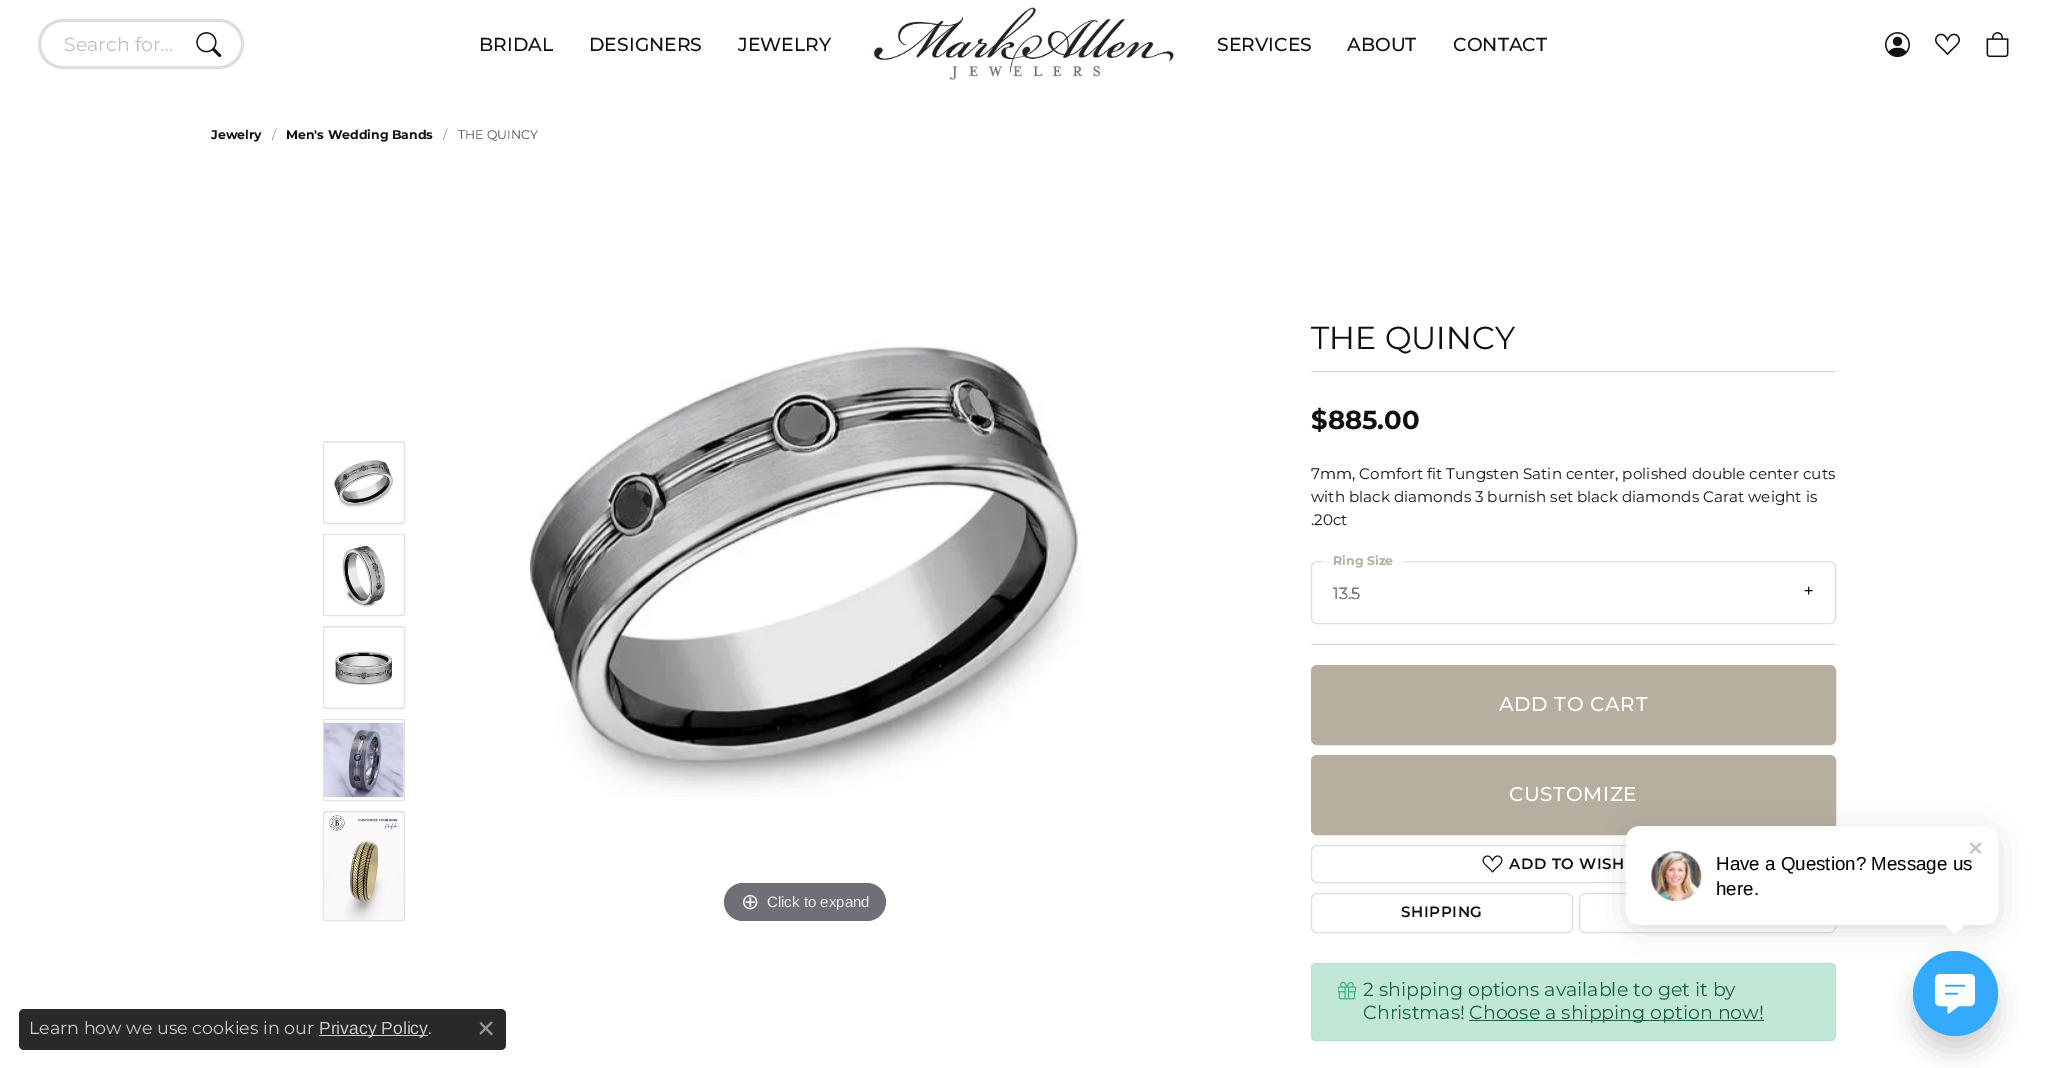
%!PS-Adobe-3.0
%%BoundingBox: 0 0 2047 1068
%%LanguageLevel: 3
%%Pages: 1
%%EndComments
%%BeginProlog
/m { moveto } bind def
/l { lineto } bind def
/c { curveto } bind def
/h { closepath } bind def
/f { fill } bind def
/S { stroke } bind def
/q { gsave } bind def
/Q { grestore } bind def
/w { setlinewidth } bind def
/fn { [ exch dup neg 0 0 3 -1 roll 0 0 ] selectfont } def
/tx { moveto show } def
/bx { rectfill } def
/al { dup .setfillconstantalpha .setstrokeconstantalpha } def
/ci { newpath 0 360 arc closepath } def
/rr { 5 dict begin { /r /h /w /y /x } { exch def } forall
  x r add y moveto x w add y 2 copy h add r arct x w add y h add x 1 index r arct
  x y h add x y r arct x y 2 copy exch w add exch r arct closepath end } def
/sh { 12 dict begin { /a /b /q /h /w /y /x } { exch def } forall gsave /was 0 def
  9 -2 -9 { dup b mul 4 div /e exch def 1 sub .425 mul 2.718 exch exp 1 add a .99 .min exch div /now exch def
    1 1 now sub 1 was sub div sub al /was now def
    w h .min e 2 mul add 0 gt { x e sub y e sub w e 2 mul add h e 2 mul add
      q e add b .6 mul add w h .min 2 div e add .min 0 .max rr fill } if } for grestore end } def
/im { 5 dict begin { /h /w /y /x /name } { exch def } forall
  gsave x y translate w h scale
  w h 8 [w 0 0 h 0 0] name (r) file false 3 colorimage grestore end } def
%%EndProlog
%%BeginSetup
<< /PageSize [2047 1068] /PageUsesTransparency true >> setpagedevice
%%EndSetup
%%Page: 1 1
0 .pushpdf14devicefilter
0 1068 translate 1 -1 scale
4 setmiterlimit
1 setgray
0 0 2047 1068 bx
0.878 0.871 0.863 setrgbcolor
3 w
39.5 20.5 203 47 23.5 rr S
/Montserrat-Regular 19 fn
0.765 0.745 0.729 setrgbcolor
(Search for...) 64 51 tx
(image0.raw) 196 32 26 26 im
(image1.raw) 873 7 301 73 im
(image2.raw) 1885 32 25 26 im
(image3.raw) 1935 33 25 23 im
(image4.raw) 1986 32 23 26 im
/Montserrat-Medium 18.75 fn
0.067 setgray
(BRIDAL) 479 51 tx
(DESIGNERS) 589 51 tx
(JEWELRY) 738 51 tx
(SERVICES) 1217 51 tx
(ABOUT) 1347 51 tx
(CONTACT) 1453 51 tx
/Montserrat-Bold 12.5 fn
(Jewelry) 211 139 tx
/Montserrat-Regular 12.5 fn
0.592 0.561 0.537 setrgbcolor
(/) 272 139 tx
/Montserrat-Bold 12.5 fn
0.067 setgray
(Men's Wedding Bands) 286 139 tx
/Montserrat-Regular 12.5 fn
0.592 0.561 0.537 setrgbcolor
(/) 443 139 tx
0.318 setgray
(THE QUINCY) 458 139 tx
0.953 0.949 0.949 setrgbcolor
323 441 82 83 2.5 rr f
0.07 al
0.067 setgray
1 w
323.5 441.5 81 82 2 rr S
1 al
(image5.raw) 324 443 80 79 im
0.953 0.949 0.949 setrgbcolor
323 534 82 82 2.5 rr f
0.07 al
0.067 setgray
323.5 534.5 81 81 2 rr S
1 al
(image6.raw) 324 535 80 80 im
0.953 0.949 0.949 setrgbcolor
323 626 82 83 2.5 rr f
0.07 al
0.067 setgray
323.5 626.5 81 82 2 rr S
1 al
(image7.raw) 324 628 80 79 im
0.953 0.949 0.949 setrgbcolor
323 719 82 82 2.5 rr f
0.07 al
0.067 setgray
323.5 719.5 81 81 2 rr S
1 al
(image8.raw) 324 720 80 80 im
0.953 0.949 0.949 setrgbcolor
323 811 82 110 2.5 rr f
0.07 al
0.067 setgray
323.5 811.5 81 109 2 rr S
1 al
(image9.raw) 324 813 80 107 im
(image10.raw) 529 342 553 455 im
0.435 0.439 0.467 setrgbcolor
724 883 162 38 19 rr f
/DejaVuSans-Regular 22 fn
0.933 setgray
(⊕) 741 909 tx
/LiberationSans-Regular 15 fn
(Click to expand) 767 907 tx
/Montserrat-Regular 31.75 fn
0.067 setgray
(THE QUINCY) 1311 349 tx
0.863 0.855 0.847 setrgbcolor
1311 371 525 1 bx
/Montserrat-Bold 26 fn
0.067 setgray
($885.00) 1311 429 tx
/Montserrat-Regular 15.2 fn
(7mm, Comfort fit Tungsten Satin center, polished double center cuts) 1311 479 tx
(with black diamonds 3 burnish set black diamonds Carat weight is) 1311 502 tx
(.20ct) 1311 525 tx
0.878 0.871 0.863 setrgbcolor
1311.5 561.5 524 62 5.5 rr S
1 setgray
1323 561 80 1 bx
/Montserrat-Bold 12.5 fn
0.714 0.682 0.624 setrgbcolor
(Ring Size) 1333 565 tx
/Montserrat-Regular 16 fn
0.067 setgray
(13.5) 1333 599 tx
/LiberationSans-Regular 16 fn
(+) 1804 596 tx
/Montserrat-Regular 16 fn
0.541 setgray
(13.5) 1333 599 tx
0.863 0.855 0.847 setrgbcolor
1311 644 525 1 bx
0.714 0.682 0.624 setrgbcolor
1311.5 665.5 524 79 5.5 rr q f Q
S
/Montserrat-Medium 20 fn
1 setgray
1499 711 m 0.6 0 (ADD TO CART) ashow
0.714 0.682 0.624 setrgbcolor
1311.5 755.5 524 79 5.5 rr q f Q
S
1 setgray
1509 801 m 0.6 0 (CUSTOMIZE) ashow
0.878 0.871 0.863 setrgbcolor
1311.5 845.5 524 37 5.5 rr S
(image11.raw) 1482 855 21 18 im
/Montserrat-SemiBold 15 fn
0.067 setgray
1509 869 m 0.6 0 (ADD TO WISH) ashow
0.878 0.871 0.863 setrgbcolor
1311.5 893.5 261 39 5.5 rr S
0.067 setgray
1401 917 m 0.6 0 (SHIPPING) ashow
0.878 0.871 0.863 setrgbcolor
1579.5 893.5 256 39 5.5 rr S
0.757 0.91 0.843 setrgbcolor
1311 963 525 78 5 rr f
0.1 al
0.188 0.694 0.471 setrgbcolor
1311.5 963.5 524 77 4.5 rr S
1 al
(image12.raw) 1338 981 18 19 im
/Montserrat-Regular 19 fn
0.102 0.38 0.259 setrgbcolor
(2 shipping options available to get it by) 1363 996 tx
(Christmas!) 1363 1019 tx
1469 1020 295 1 bx
(Choose a shipping option now!) 1469 1019 tx
0 setgray
1913 966 85 85 42.5 12 0.18 sh
0.2 0.667 0.988 setrgbcolor
1955.5 993.5 42.5 ci f
0 setgray
1631 836 362 89 9 15 0.18 sh
1 setgray
1626 826 372 99 14 rr f
(image13.raw) 1969 842 13 12 im
(image14.raw) 1651 851 51 51 im
/LiberationSans-Regular 18.75 fn
0 setgray
(Have a Question? Message us) 1716 870 tx
(here.) 1716 895 tx
1 setgray
1941 921 m 1951 931 l 1954.5 934.5 1955 934.5 1958.5 931 c 1968 921 l h eofill
0.161 setgray
19 1009 487 41 5 rr f
/Montserrat-Regular 17.5 fn
0.8 setgray
(Learn how we use cookies in our) 29 1034 tx
319 1035 109 1 bx
/LiberationSans-Regular 17.5 fn
(Privacy Policy) 319 1034 tx
/Montserrat-Regular 17.5 fn
(.) 428 1034 tx
(image15.raw) 479 1021 14 15 im
(image16.raw) 1935 974 40 40 im
.poppdf14devicefilter showpage
%%EOF
